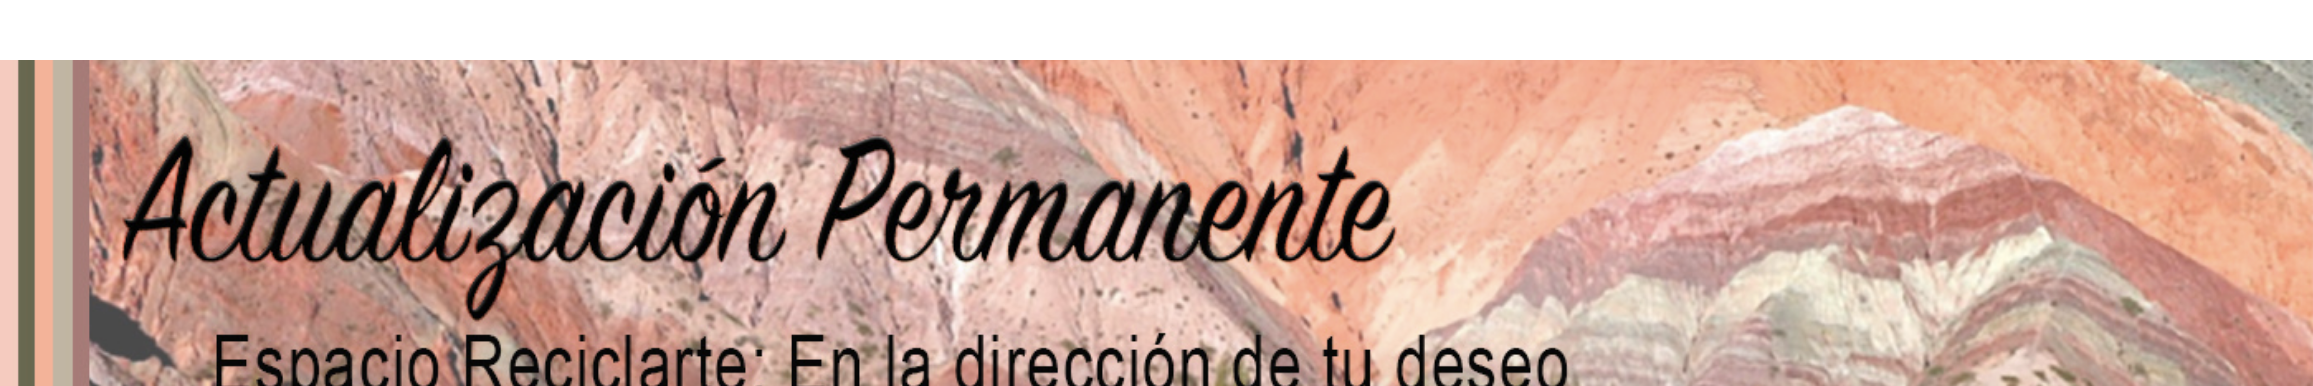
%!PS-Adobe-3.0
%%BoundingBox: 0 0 2313 386
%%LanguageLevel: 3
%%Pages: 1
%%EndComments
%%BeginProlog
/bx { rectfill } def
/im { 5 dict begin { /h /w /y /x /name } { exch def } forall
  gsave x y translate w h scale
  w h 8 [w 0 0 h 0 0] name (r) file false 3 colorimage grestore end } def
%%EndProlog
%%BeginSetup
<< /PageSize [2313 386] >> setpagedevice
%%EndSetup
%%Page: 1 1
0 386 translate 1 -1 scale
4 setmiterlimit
1 setgray
0 0 2313 386 bx
(image0.raw) 0 60 2313 326 im
showpage
%%EOF
